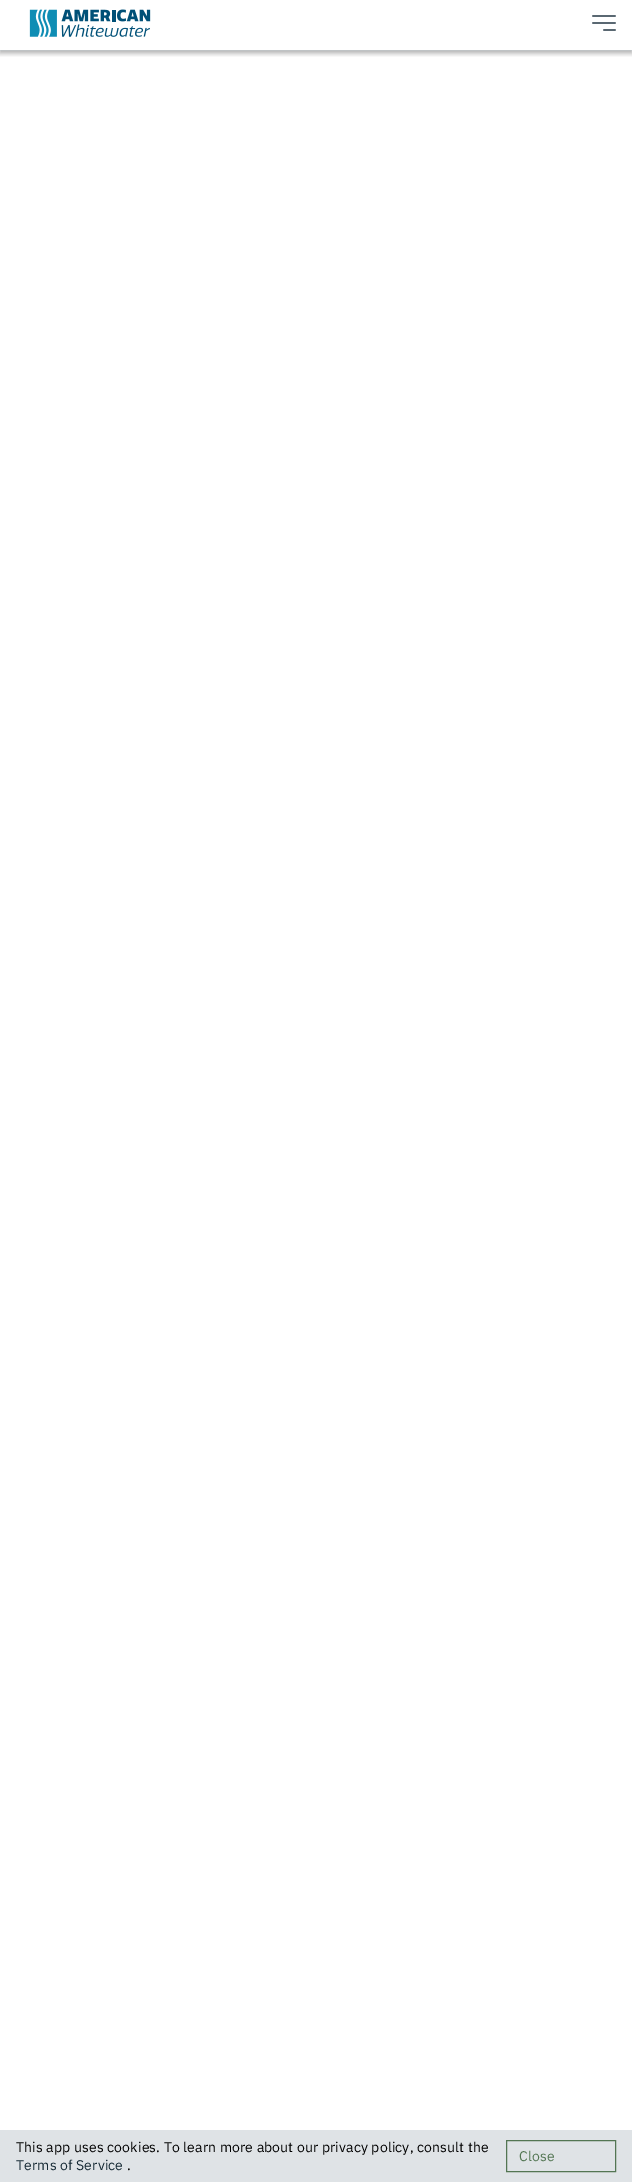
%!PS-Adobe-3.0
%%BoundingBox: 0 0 632 2182
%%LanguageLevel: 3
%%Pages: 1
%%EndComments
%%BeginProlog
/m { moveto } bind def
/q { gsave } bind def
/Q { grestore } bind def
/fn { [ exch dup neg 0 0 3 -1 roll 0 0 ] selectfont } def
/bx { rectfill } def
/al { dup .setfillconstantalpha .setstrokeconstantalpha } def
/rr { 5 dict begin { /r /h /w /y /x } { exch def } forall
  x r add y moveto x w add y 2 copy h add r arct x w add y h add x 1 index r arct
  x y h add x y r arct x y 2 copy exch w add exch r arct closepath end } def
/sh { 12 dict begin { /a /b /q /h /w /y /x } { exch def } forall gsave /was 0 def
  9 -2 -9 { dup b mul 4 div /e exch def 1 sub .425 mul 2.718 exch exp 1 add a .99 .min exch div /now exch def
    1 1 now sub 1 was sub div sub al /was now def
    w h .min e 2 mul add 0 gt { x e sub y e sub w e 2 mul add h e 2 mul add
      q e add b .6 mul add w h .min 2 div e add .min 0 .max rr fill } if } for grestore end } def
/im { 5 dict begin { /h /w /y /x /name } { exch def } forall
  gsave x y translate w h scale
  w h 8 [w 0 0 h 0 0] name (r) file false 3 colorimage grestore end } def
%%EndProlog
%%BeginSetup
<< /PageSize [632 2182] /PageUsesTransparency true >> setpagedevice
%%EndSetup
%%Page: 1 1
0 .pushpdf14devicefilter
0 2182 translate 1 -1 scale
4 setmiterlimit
1 setgray
0 0 632 2182 bx
q
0 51 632 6 rectclip
0 setgray
0 2 632 51 0 3 0.2 sh
Q
0.875 0.89 0.902 setrgbcolor
0 50 632 1 bx
q
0 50 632 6 rectclip
0 setgray
0 2 632 50 0 3 0.2 sh
Q
(image0.raw) 29 9 122 28 im
(image1.raw) 592 15 24 16 im
0 2130 632 52 bx
/IBMPlexSans-Regular 14 fn
0 setgray
16 2152 m 0.15 0 (This app uses cookies. To learn more about our privacy policy, consult the) ashow
0.082 0.161 0.204 setrgbcolor
16 2170 m 0.15 0 (Terms of Service) ashow
0 setgray
127 2170 m 0.15 0 (.) ashow
0.325 0.463 0.325 setrgbcolor
506.5 2140.5 109 31 rectstroke
519 2161 m 0.15 0 (Close) ashow
.poppdf14devicefilter showpage
%%EOF
